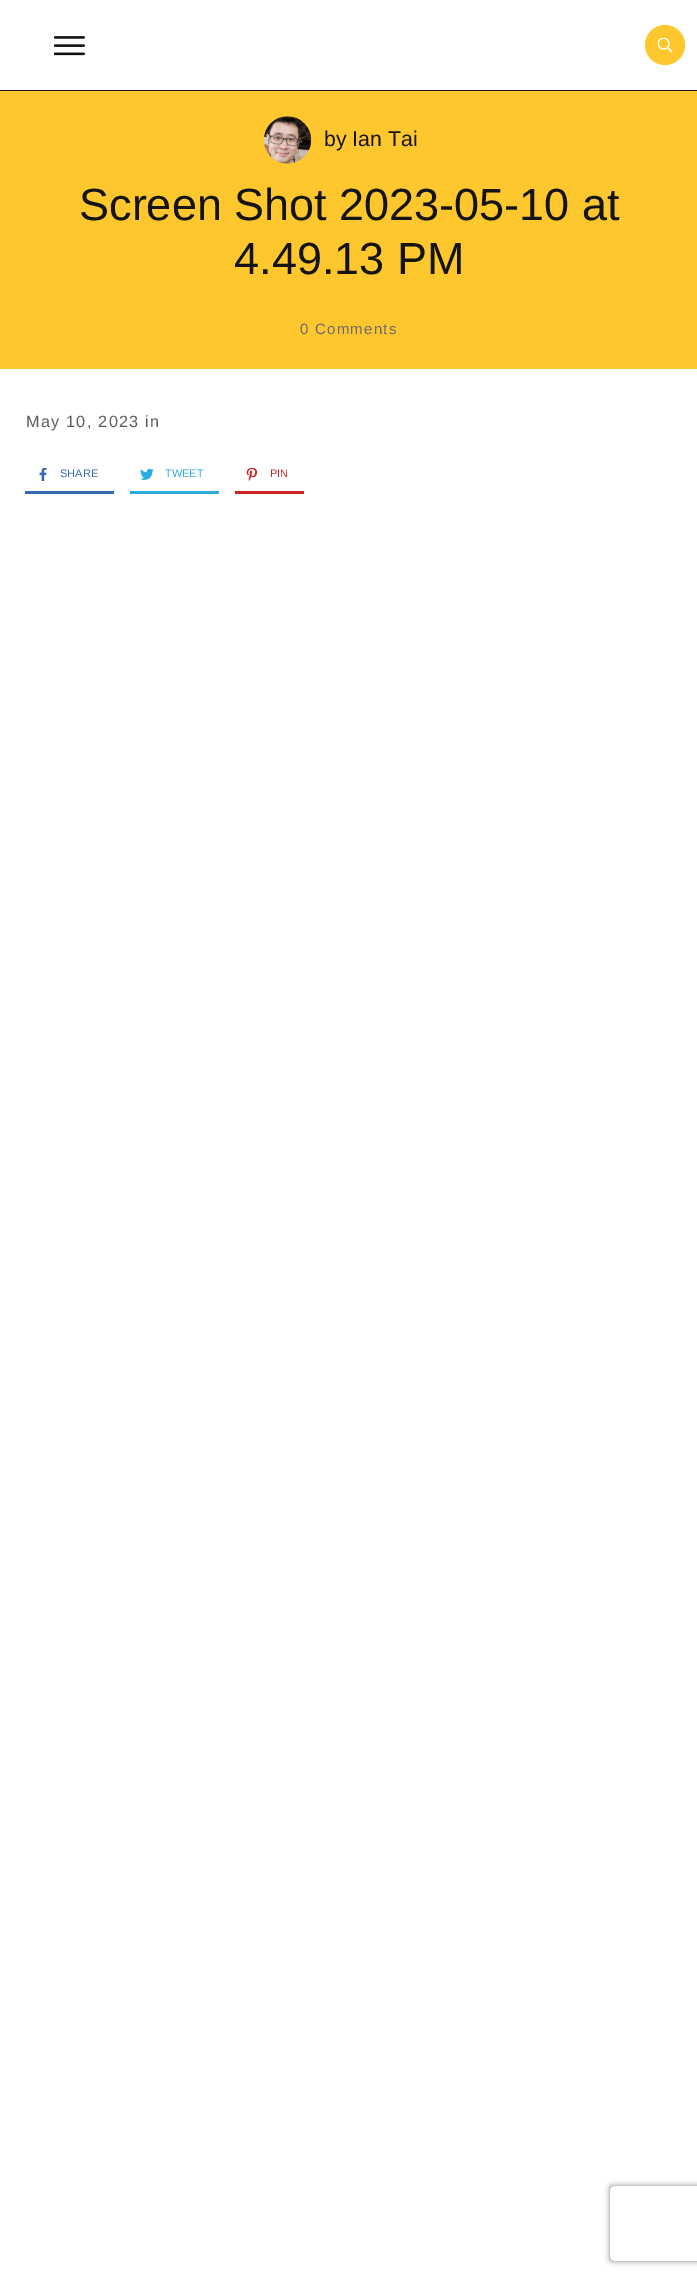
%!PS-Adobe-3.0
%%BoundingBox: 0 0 697 2278
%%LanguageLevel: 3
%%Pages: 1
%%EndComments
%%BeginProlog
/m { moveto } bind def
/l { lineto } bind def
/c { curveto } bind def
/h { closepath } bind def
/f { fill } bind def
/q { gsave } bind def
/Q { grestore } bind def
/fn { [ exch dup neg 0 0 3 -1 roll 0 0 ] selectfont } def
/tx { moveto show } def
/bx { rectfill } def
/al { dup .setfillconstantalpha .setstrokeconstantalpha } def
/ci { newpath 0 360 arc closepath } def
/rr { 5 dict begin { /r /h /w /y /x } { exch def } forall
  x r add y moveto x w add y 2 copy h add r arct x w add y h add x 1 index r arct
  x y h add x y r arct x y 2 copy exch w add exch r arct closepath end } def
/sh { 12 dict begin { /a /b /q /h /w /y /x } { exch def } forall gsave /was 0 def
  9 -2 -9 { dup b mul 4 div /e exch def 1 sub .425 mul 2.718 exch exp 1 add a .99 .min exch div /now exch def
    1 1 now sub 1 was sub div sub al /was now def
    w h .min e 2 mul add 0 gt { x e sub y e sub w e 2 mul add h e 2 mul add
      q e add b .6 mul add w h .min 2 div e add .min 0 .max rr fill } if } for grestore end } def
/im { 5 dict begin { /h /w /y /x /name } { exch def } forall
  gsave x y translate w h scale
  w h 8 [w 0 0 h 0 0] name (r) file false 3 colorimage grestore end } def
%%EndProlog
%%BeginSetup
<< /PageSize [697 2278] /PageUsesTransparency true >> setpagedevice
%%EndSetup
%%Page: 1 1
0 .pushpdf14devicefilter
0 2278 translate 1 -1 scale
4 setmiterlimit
1 setgray
0 0 697 2278 bx
0.078 setgray
0 90 697 1 bx
(image0.raw) 54 36 31 20 im
1 0.78 0.18 setrgbcolor
665 45 20 ci f
(image1.raw) 658 38 15 15 im
0 91 697 278 bx
(image2.raw) 263 116 49 48 im
/LiberationSans-Regular 21.25 fn
0.078 setgray
(by Ian Tai) 324 146 tx
/LiberationSans-Regular 45 fn
(Screen Shot 2023-05-10 at) 79 220 tx
(4.49.13 PM) 234 274 tx
/LiberationSans-Regular 15 fn
0.416 0.42 0.424 setrgbcolor
300 334 m 1.25 0 (0 Comments) ashow
/LiberationSans-Regular 16.25 fn
0.353 0.365 0.376 setrgbcolor
26 427 m 1.25 0 (May 10, 2023 in) ashow
0.208 0.412 0.706 setrgbcolor
25 491 89 3 bx
(image3.raw) 39 468 8 13 im
/LiberationSans-Regular 11 fn
(SHARE) 60 477 tx
0.161 0.675 0.878 setrgbcolor
130 491 89 3 bx
(image4.raw) 140 468 14 12 im
(TWEET) 165 477 tx
0.812 0.129 0.137 setrgbcolor
235 491 69 3 bx
(image5.raw) 246 468 11 13 im
(PIN) 270 477 tx
q
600 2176 m 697 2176 l 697 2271 l 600 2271 l h 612.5 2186 m 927.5 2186 l 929 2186 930 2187 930 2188.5 c 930 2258.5 l 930 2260 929 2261 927.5 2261 c 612.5 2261 l 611 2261 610 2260 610 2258.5 c 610 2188.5 l 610 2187 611 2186 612.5 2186 c h eoclip newpath
0.502 setgray
610 2186 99 75 2.5 3 1 sh
Q
.poppdf14devicefilter showpage
%%EOF
